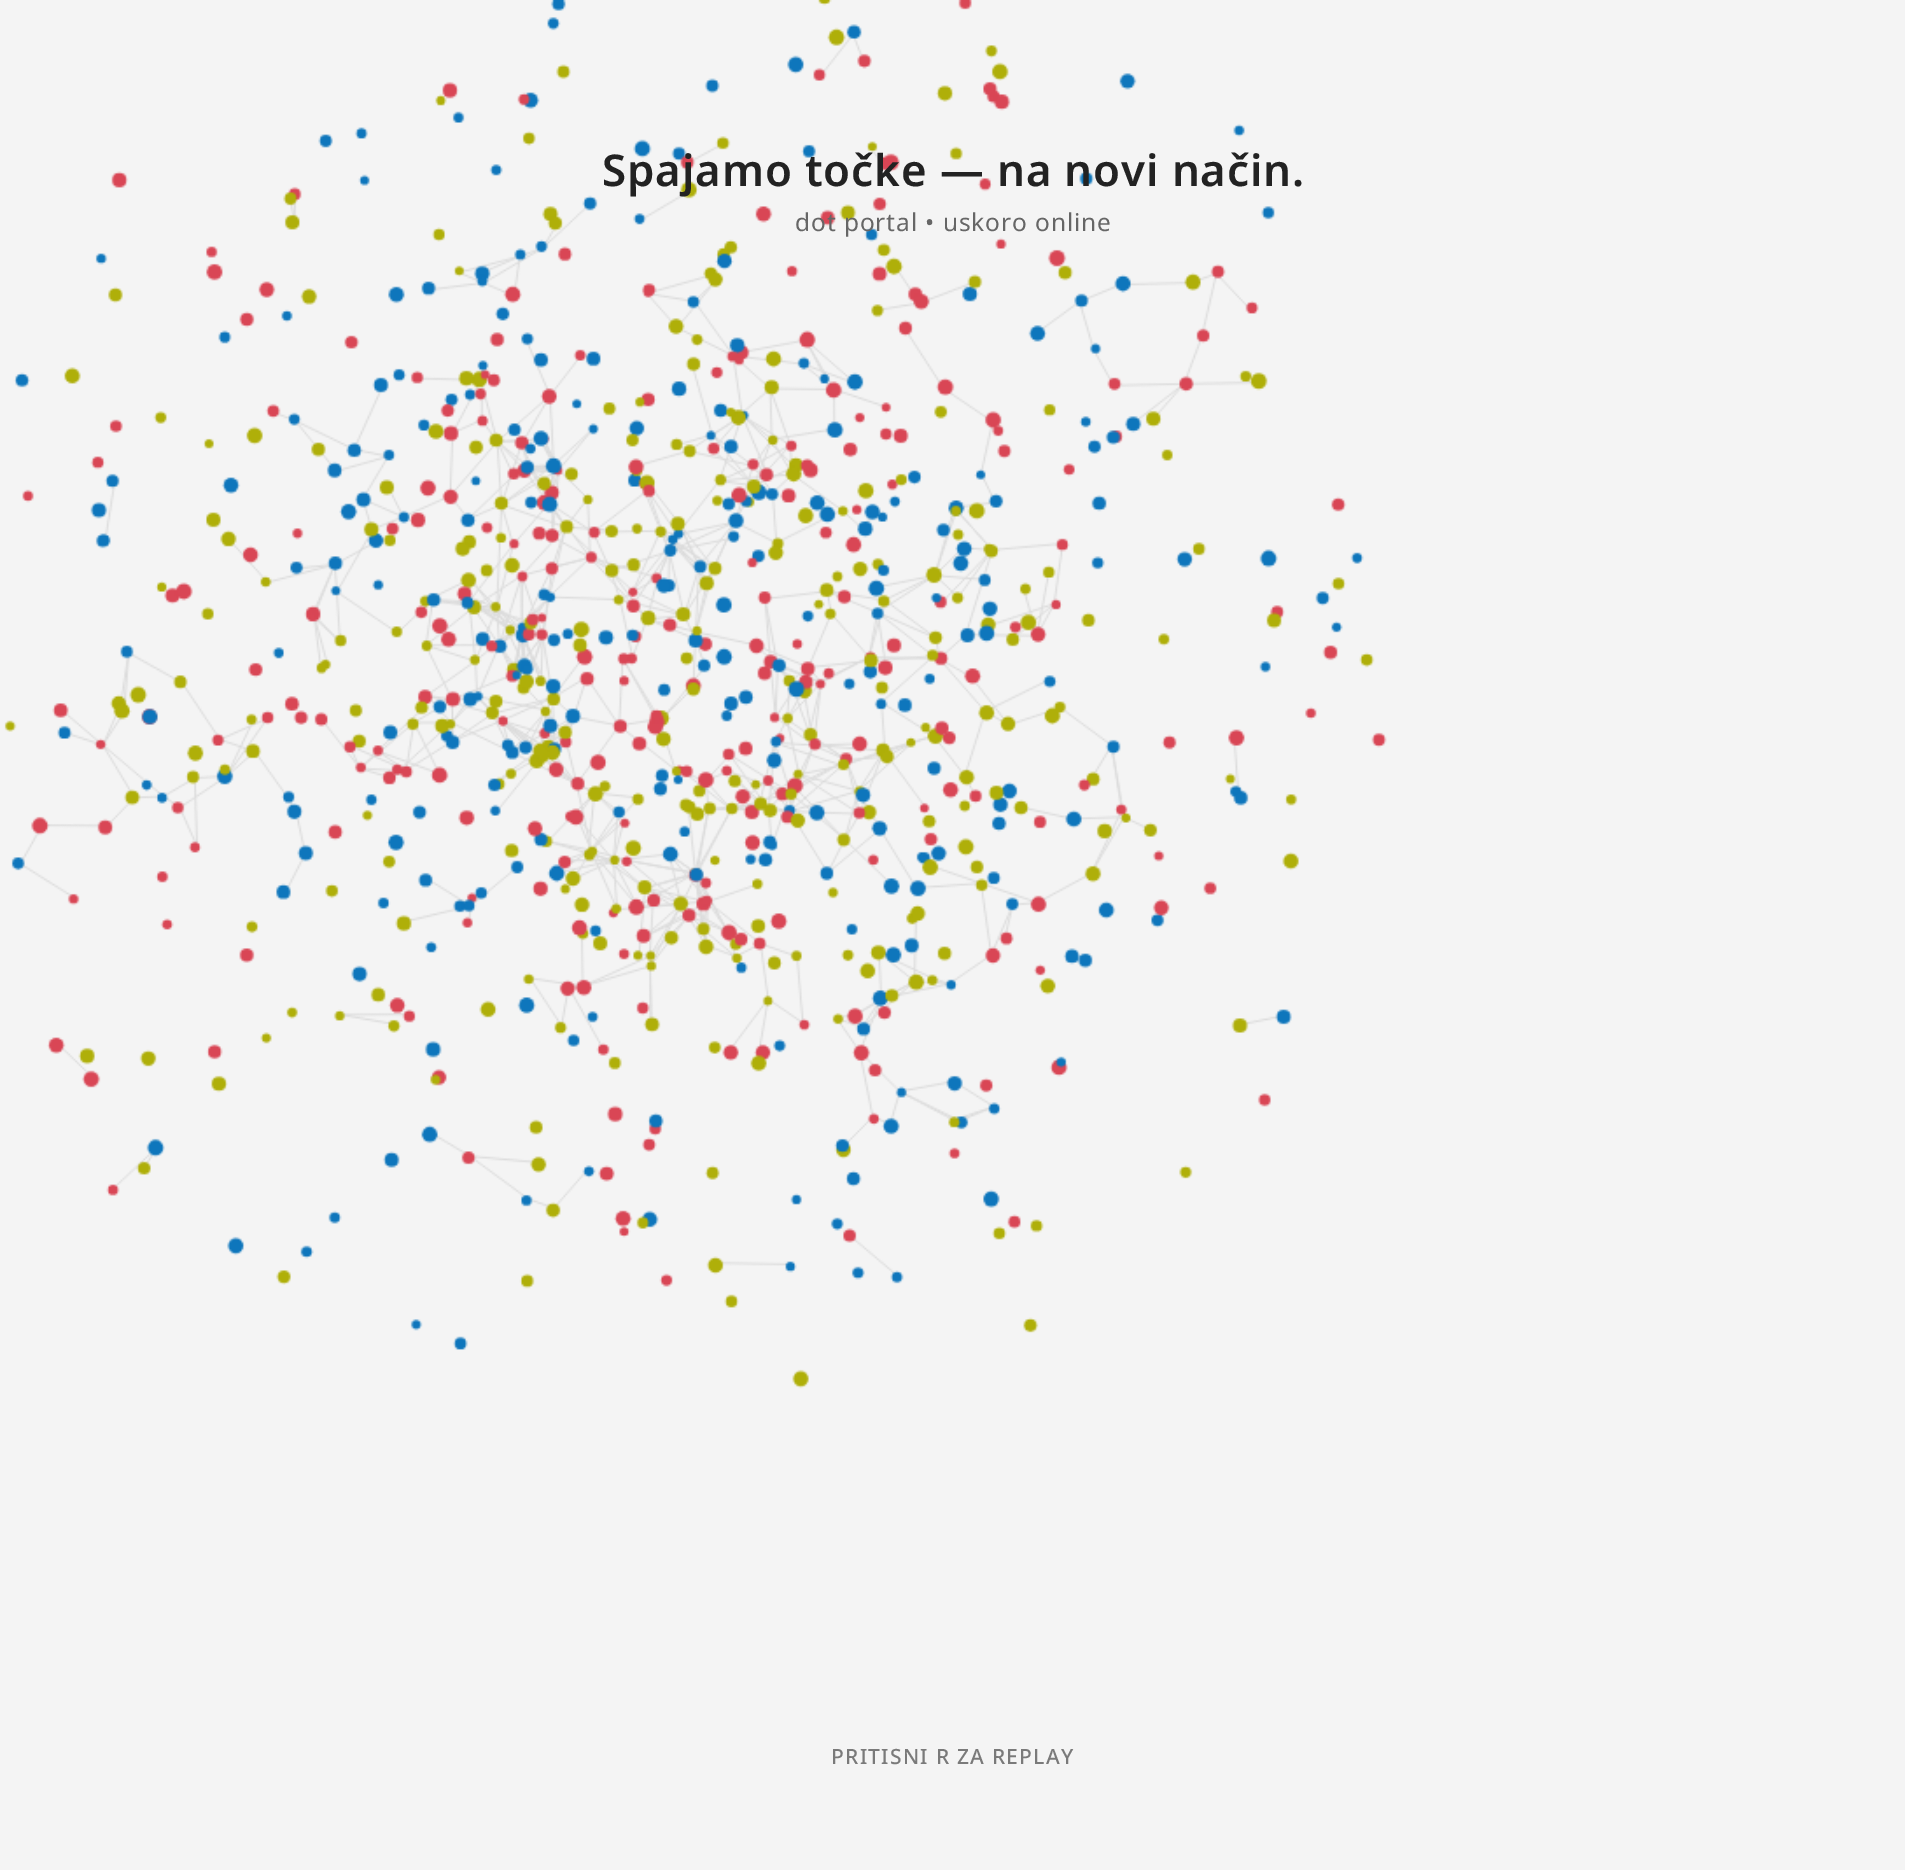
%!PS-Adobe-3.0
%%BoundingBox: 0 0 1905 1870
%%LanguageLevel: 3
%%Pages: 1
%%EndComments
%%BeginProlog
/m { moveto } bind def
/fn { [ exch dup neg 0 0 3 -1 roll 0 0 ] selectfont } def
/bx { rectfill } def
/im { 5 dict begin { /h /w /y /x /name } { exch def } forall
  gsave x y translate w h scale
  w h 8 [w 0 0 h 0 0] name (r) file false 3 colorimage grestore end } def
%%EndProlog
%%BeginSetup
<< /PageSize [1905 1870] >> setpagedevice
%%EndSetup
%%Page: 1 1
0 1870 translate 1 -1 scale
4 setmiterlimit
0.957 setgray
0 0 1905 1870 bx
(image0.raw) 4 0 1383 1389 im
/NotoSans-SemiBold 43.8 fn
0.133 setgray
602 186 m 0.9 0 (Spajamo točke — na novi način.) ashow
/NotoSans-Regular 24.5 fn
0.4 setgray
795 231 m 0.9 0 (dot portal • uskoro online) ashow
/NotoSans-Medium 21 fn
0.478 setgray
831 1764 m 1.25 0 (PRITISNI R ZA REPLAY) ashow
showpage
%%EOF
